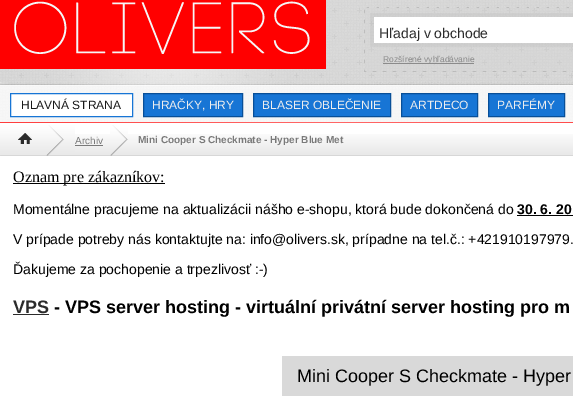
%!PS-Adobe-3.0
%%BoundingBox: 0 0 573 398
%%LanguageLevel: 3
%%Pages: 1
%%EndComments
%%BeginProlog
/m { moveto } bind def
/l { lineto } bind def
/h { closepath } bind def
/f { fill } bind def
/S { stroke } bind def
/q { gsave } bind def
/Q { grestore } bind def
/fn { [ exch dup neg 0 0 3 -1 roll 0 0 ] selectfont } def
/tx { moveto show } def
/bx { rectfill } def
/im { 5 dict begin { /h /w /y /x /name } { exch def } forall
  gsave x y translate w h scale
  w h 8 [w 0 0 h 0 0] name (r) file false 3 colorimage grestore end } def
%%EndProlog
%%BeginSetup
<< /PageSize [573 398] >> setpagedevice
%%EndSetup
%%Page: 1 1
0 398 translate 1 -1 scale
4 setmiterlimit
1 setgray
0 0 573 398 bx
(image0.raw) 0 0 573 86 im
/LiberationSans-Regular 14 fn
0.169 setgray
(Hľadaj v obchode) 379 38 tx
0.545 setgray
383 63 91 1 bx
/LiberationSans-Regular 8.5 fn
(Rozšírené vyhľadávanie) 383 62 tx
(image1.raw) 0 86 573 37 im
1 setgray
10.5 93.5 m 132.5 93.5 l 132.5 116.5 l 10.5 116.5 l h q f Q
0.09 0.459 0.835 setrgbcolor
S
/LiberationSans-Regular 12 fn
0.098 setgray
(HLAVNÁ STRANA) 21 109 tx
0.09 0.459 0.835 setrgbcolor
143.5 93.5 m 242.5 93.5 l 242.5 116.5 l 143.5 116.5 l h q f Q
0.031 0.31 0.596 setrgbcolor
S
0.933 setgray
(HRAČKY, HRY) 152 109 tx
0.09 0.459 0.835 setrgbcolor
253.5 93.5 m 390.5 93.5 l 390.5 116.5 l 253.5 116.5 l h q f Q
0.031 0.31 0.596 setrgbcolor
S
0.933 setgray
(BLASER OBLEČENIE) 262 109 tx
0.09 0.459 0.835 setrgbcolor
401.5 93.5 m 477.5 93.5 l 477.5 116.5 l 401.5 116.5 l h q f Q
0.031 0.31 0.596 setrgbcolor
S
0.933 setgray
(ARTDECO) 410 109 tx
0.09 0.459 0.835 setrgbcolor
488.5 93.5 m 564.5 93.5 l 564.5 116.5 l 488.5 116.5 l h q f Q
0.031 0.31 0.596 setrgbcolor
S
0.933 setgray
(PARFÉMY) 497 109 tx
(image2.raw) 75 134 498 22 im
(image3.raw) 0 125 75 31 im
(image4.raw) 110 125 18 31 im
/LiberationSans-Regular 10 fn
0.475 setgray
(Archiv) 75 144 tx
75 145 28 1 bx
/LiberationSans-Bold 10 fn
(Mini Cooper S Checkmate - Hyper Blue Met) 138 143 tx
0 setgray
13 183 152 1 bx
/LiberationSerif-Regular 16 fn
(Oznam pre zákazníkov:) 13 182 tx
/LiberationSans-Regular 14 fn
(Momentálne pracujeme na aktualizácii nášho e-shopu, ktorá bude dokončená do) 13 214 tx
/LiberationSans-Bold 14 fn
(30. 6. 20) 517 214 tx
517 215 56 1 bx
/LiberationSans-Regular 14 fn
(V prípade potreby nás kontaktujte na: info@olivers.sk, prípadne na tel.č.: +421910197979.) 13 244 tx
(Ďakujeme za pochopenie a trpezlivosť :-\)) 13 274 tx
/LiberationSans-Bold 18 fn
0.169 setgray
(VPS) 13 313 tx
13 314 36 1 bx
0 setgray
(- VPS server hosting - virtuální privátní server hosting pro m) 54 313 tx
0.851 setgray
282 356 291 40 bx
/LiberationSans-Regular 18 fn
0 setgray
(Mini Cooper S Checkmate - Hyper) 297 382 tx
showpage
%%EOF
